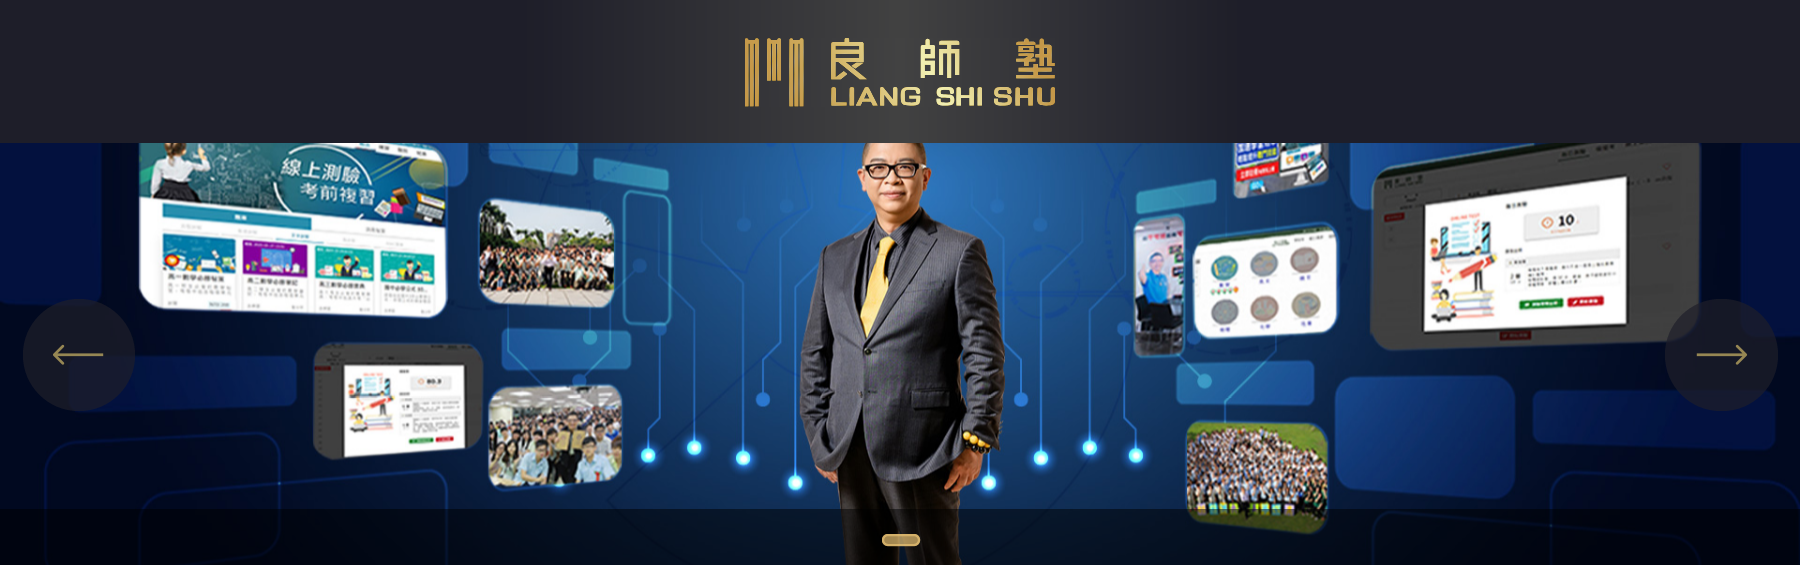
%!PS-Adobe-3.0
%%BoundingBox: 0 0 1800 565
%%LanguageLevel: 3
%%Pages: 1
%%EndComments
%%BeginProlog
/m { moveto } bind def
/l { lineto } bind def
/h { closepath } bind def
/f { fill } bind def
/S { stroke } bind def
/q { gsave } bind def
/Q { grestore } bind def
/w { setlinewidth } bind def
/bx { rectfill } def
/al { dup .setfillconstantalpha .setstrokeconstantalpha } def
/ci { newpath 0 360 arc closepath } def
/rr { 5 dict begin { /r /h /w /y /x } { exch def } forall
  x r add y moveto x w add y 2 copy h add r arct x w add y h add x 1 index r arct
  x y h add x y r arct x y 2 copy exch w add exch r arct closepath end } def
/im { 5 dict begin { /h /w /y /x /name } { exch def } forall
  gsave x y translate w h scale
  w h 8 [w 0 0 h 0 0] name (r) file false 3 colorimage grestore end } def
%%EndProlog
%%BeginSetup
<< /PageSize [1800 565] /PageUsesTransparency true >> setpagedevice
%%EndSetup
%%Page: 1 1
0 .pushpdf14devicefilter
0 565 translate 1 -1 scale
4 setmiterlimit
1 setgray
0 0 1800 565 bx
q 0 0 m 1800 0 l 1800 143 l 0 143 l h clip newpath
<< /ShadingType 2 /ColorSpace /DeviceRGB /Coords [1800 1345 0 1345] /Extend [true true] /Function << /FunctionType 3 /Domain [0 1] /Functions [<< /FunctionType 2 /Domain [0 1] /C0 [0.118 0.118 0.161] /C1 [0.118 0.118 0.161] /N 1 >> << /FunctionType 2 /Domain [0 1] /C0 [0.118 0.118 0.161] /C1 [0.259 0.259 0.259] /N 1 >> << /FunctionType 2 /Domain [0 1] /C0 [0.259 0.259 0.259] /C1 [0.118 0.118 0.161] /N 1 >> << /FunctionType 2 /Domain [0 1] /C0 [0.118 0.118 0.161] /C1 [0.118 0.118 0.161] /N 1 >>] /Bounds [0.31 0.5 0.71] /Encode [0 1 0 1 0 1 0 1] >> >> shfill Q
(image0.raw) 745 38 310 69 im
(image1.raw) 0 143 1800 422 im
0.7 al
0.118 0.118 0.161 setrgbcolor
79 355 56 ci f
1 al
(image2.raw) 53 344 51 21 im
0.7 al
1665 299 113 112 56 rr f
1 al
(image3.raw) 1696 344 52 21 im
0.5 al
0 setgray
0 509 1800 56 bx
0.7 al
0.906 0.753 0.447 setrgbcolor
882 534 38 12 6 rr f
2 w
883 535 36 10 5 rr S
.poppdf14devicefilter showpage
%%EOF
